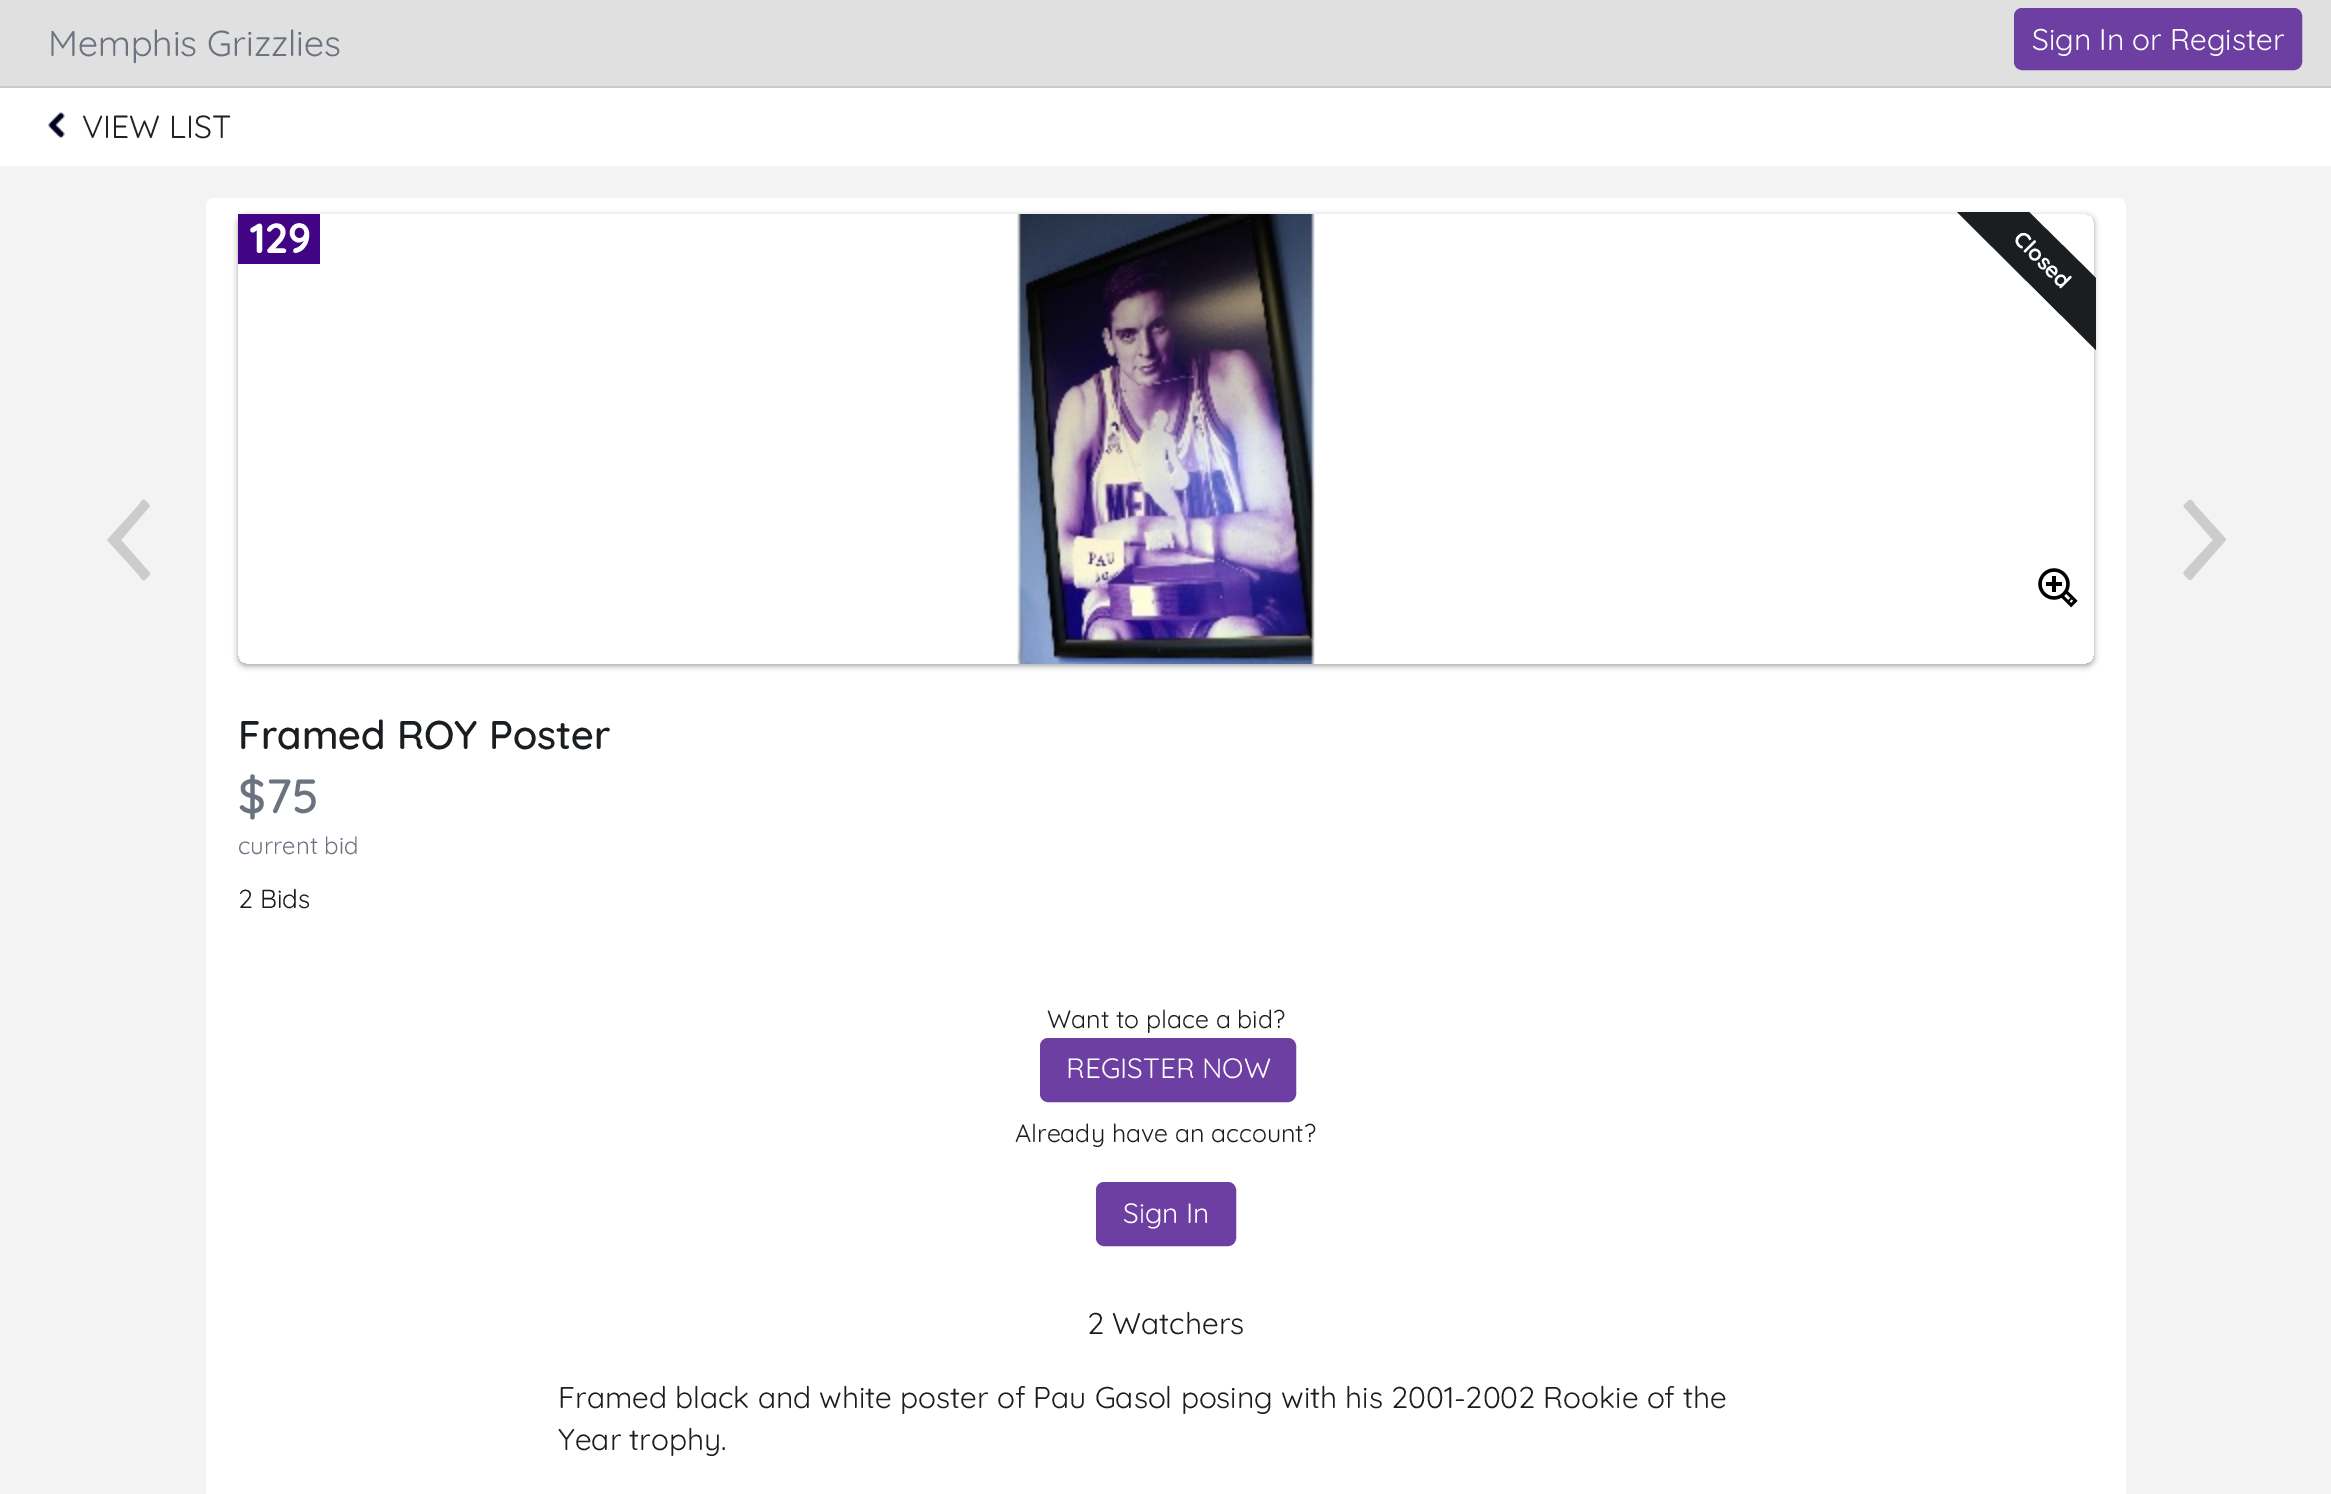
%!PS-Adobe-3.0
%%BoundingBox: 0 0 2331 1494
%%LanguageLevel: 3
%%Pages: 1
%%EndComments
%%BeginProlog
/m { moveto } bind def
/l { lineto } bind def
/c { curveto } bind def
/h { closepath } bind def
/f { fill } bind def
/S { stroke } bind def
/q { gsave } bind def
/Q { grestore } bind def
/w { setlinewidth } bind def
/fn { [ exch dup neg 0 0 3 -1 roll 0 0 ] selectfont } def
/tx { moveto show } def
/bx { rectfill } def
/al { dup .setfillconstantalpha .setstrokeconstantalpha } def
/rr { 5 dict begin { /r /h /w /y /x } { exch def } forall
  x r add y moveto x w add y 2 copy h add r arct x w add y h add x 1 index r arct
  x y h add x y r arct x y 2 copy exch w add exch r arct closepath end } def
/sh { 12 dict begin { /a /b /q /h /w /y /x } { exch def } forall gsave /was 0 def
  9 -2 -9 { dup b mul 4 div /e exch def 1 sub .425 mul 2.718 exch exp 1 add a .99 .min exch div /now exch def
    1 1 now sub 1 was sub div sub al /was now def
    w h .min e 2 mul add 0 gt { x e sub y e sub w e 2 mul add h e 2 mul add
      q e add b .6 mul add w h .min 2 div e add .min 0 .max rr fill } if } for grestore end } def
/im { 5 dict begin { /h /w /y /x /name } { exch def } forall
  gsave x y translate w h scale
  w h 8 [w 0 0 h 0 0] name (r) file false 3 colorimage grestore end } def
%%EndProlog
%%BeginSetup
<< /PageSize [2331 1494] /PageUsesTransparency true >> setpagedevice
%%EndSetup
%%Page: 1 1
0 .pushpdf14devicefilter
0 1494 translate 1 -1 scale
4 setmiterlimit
0.953 setgray
0 0 2331 1494 bx
0.878 setgray
0 0 2331 86 bx
0.792 setgray
0 86 2331 2 bx
/Quicksand-Regular 36 fn
0.42 0.447 0.502 setrgbcolor
(Memphis Grizzlies) 48 56 tx
0.431 0.247 0.639 setrgbcolor
2015 9 286 60 7 rr q f Q
2 w
S
/Quicksand-Regular 30 fn
1 setgray
(Sign In or Register) 2032 50 tx
0 88 2331 78 bx
(image0.raw) 48 112 17 26 im
/Quicksand-Regular 32 fn
0.133 setgray
(VIEW LIST) 82 138 tx
1 setgray
206 198 1920 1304 8 rr f
0.8 setgray
108 541 m 137 573 l 141 577 142 583 146 579 c 147 578 151 574 150 573 c 121 540 l 150 506 l 147 502 l 142 497 143 500 137 507 c 107 540 l h f
q
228 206 m 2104 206 l 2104 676 l 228 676 l h 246 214 m 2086 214 l 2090.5 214 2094 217.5 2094 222 c 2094 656 l 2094 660.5 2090.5 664 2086 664 c 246 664 l 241.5 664 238 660.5 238 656 c 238 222 l 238 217.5 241.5 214 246 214 c h eoclip newpath
0.133 0.098 0.098 setrgbcolor
238 216 1856 450 8 3 0.4 sh
Q
0.251 0.016 0.518 setrgbcolor
238 214 82 50 bx
/Quicksand-Bold 42 fn
1 setgray
(129) 250 253 tx
(image1.raw) 1017 214 298 450 im
0.106 0.118 0.129 setrgbcolor
2096 350 m 1957 212 l 2029 212 l 2096 278 l h f
/Quicksand-Bold 22 fn
1 setgray
q 2012 240 translate 45 rotate 0 0 m (Closed) show Q
(image2.raw) 2038 568 40 40 im
/Quicksand-Medium 40 fn
0.106 0.118 0.129 setrgbcolor
(Framed ROY Poster) 238 749 tx
/Quicksand-Medium 48 fn
0.42 0.447 0.502 setrgbcolor
($75) 238 813 tx
/Quicksand-Regular 24 fn
(current bid) 238 854 tx
/Quicksand-Regular 26 fn
0.106 0.118 0.129 setrgbcolor
(2 Bids) 238 908 tx
/Quicksand-Regular 25 fn
(Want to place a bid?) 1047 1028 tx
0.431 0.247 0.639 setrgbcolor
1041 1039 254 62 7 rr q f Q
S
/Quicksand-Regular 28 fn
1 setgray
(REGISTER NOW) 1066 1078 tx
/Quicksand-Regular 25 fn
0.106 0.118 0.129 setrgbcolor
(Already have an account?) 1015 1142 tx
0.431 0.247 0.639 setrgbcolor
1097 1183 138 62 7 rr q f Q
S
/Quicksand-Regular 28 fn
1 setgray
(Sign In) 1123 1223 tx
/Quicksand-Regular 30 fn
0.106 0.118 0.129 setrgbcolor
(2 Watchers) 1087 1334 tx
(Framed black and white poster of Pau Gasol posing with his 2001-2002 Rookie of the) 558 1408 tx
(Year trophy.) 558 1450 tx
0.8 setgray
2226 539 m 2197 507 l 2193 503 2192 497 2188 501 c 2187 502 2182 506 2184 507 c 2213 540 l 2188 567 l 2182 574 2182 572 2187 578 c 2192 582 2191 580 2197 573 c 2226 540 l h f
.poppdf14devicefilter showpage
%%EOF
